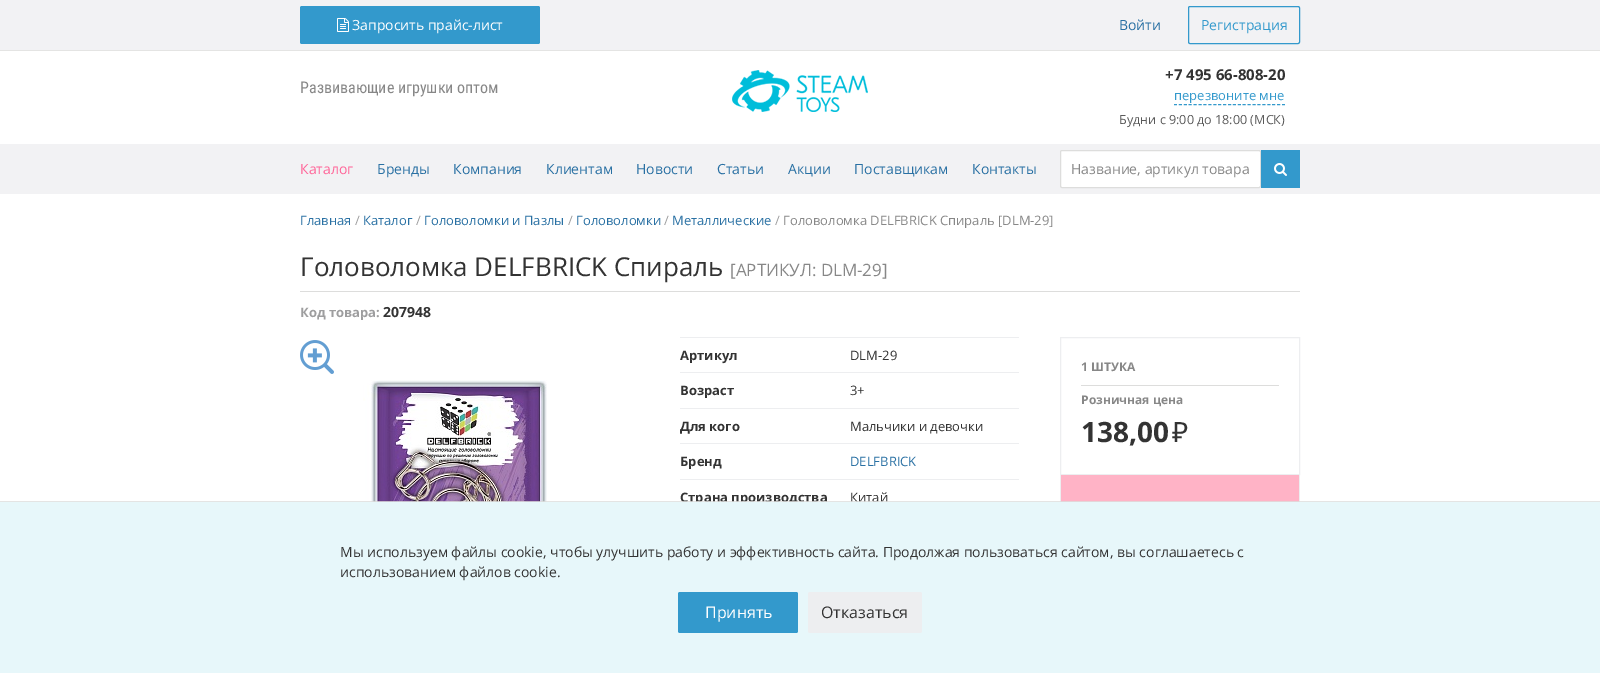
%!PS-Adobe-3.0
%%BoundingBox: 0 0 1600 673
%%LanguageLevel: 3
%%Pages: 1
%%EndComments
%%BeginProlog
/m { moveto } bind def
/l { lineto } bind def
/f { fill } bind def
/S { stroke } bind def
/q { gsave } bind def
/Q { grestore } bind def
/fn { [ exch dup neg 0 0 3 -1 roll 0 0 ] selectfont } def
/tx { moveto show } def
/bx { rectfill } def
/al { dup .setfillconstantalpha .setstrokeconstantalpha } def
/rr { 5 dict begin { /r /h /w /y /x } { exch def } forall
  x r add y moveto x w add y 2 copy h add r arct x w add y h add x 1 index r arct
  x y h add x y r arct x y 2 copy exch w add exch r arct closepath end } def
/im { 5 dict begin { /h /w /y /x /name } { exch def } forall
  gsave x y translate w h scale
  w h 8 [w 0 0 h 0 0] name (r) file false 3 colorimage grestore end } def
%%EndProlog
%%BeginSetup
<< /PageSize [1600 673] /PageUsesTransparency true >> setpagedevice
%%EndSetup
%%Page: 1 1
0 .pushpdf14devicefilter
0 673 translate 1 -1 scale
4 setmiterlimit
1 setgray
0 0 1600 673 bx
0.894 0.894 0.89 setrgbcolor
0 50 1600 1 bx
0.949 0.949 0.957 setrgbcolor
0 0 1600 50 bx
0.2 0.6 0.8 setrgbcolor
300 6 240 38 2 rr f
(image0.raw) 337 18 12 14 im
/OpenSans-Regular 14 fn
1 setgray
(Запросить прайс-лист) 352 30 tx
0.161 0.439 0.639 setrgbcolor
(Войти) 1119 30 tx
0.2 0.6 0.8 setrgbcolor
1188.5 6.5 111 37 1.5 rr S
(Регистрация) 1201 30 tx
/RobotoCondensed-Regular 16 fn
0.529 setgray
(Развивающие игрушки оптом) 300 93 tx
(image1.raw) 732 70 136 42 im
/OpenSans-Bold 15 fn
0.2 setgray
(+7 495 66-808-20) 1165 80 tx
/OpenSans-Regular 13 fn
0.2 0.6 0.8 setrgbcolor
(перезвоните мне) 1174 100 tx
[3 1.91] 0 setdash
1174 104.5 m 1285 104.5 l S
/OpenSans-Regular 12.6 fn
0.353 setgray
(Будни с 9:00 до 18:00 \(МСК\)) 1119 124 tx
0.949 0.949 0.957 setrgbcolor
0 144 1600 50 bx
/OpenSans-Regular 14 fn
1 0.4 0.6 setrgbcolor
(Каталог) 300 174 tx
0.161 0.439 0.639 setrgbcolor
(Бренды) 377 174 tx
(Компания) 453 174 tx
(Клиентам) 546 174 tx
(Новости) 636 174 tx
(Статьи) 717 174 tx
(Акции) 788 174 tx
(Поставщикам) 854 174 tx
(Контакты) 972 174 tx
1 setgray
1060.5 150.5 200 37 1.5 rr q f Q
0.867 0.867 0.863 setrgbcolor
[] 0 setdash
S
0.529 setgray
(Название, артикул товара) 1071 174 tx
0.2 0.6 0.8 setrgbcolor
1261 150 39 38 bx
(image2.raw) 1274 163 13 13 im
/OpenSans-Regular 13 fn
0.161 0.439 0.639 setrgbcolor
(Главная) 300 225 tx
0.62 0.62 0.624 setrgbcolor
(/) 355 225 tx
0.161 0.439 0.639 setrgbcolor
(Каталог) 363 225 tx
0.62 0.62 0.624 setrgbcolor
(/) 416 225 tx
0.161 0.439 0.639 setrgbcolor
(Головоломки и Пазлы) 424 225 tx
0.62 0.62 0.624 setrgbcolor
(/) 568 225 tx
0.161 0.439 0.639 setrgbcolor
(Головоломки) 576 225 tx
0.62 0.62 0.624 setrgbcolor
(/) 664 225 tx
0.161 0.439 0.639 setrgbcolor
(Металлические) 672 225 tx
0.62 0.62 0.624 setrgbcolor
(/) 775 225 tx
0.529 setgray
(Головоломка DELFBRICK Спираль [DLM-29]) 783 225 tx
0.867 0.867 0.863 setrgbcolor
300 291 1000 1 bx
/OpenSans-Regular 26 fn
0.2 setgray
(Головоломка DELFBRICK Спираль) 300 276 tx
/OpenSans-Regular 17 fn
0.529 setgray
([АРТИКУЛ: DLM-29]) 730 276 tx
/OpenSans-Bold 13 fn
0.62 0.62 0.624 setrgbcolor
(Код товара:) 300 317 tx
/OpenSans-Bold 14 fn
0.2 setgray
(207948) 383 317 tx
(image3.raw) 300 340 34 34 im
(image4.raw) 363 380 184 122 im
0.929 0.933 0.941 setrgbcolor
680 337 339 1 bx
680 372 339 1 bx
/OpenSans-Bold 13 fn
0.2 setgray
(Артикул) 680 360 tx
/OpenSans-Regular 13 fn
(DLM-29) 850 360 tx
0.929 0.933 0.941 setrgbcolor
680 408 339 1 bx
/OpenSans-Bold 13 fn
0.2 setgray
(Возраст) 680 395 tx
/OpenSans-Regular 13 fn
(3+) 850 395 tx
0.929 0.933 0.941 setrgbcolor
680 443 339 1 bx
/OpenSans-Bold 13 fn
0.2 setgray
(Для кого) 680 431 tx
/OpenSans-Regular 13 fn
(Мальчики и девочки) 850 431 tx
0.929 0.933 0.941 setrgbcolor
680 479 339 1 bx
/OpenSans-Bold 13 fn
0.2 setgray
(Бренд) 680 466 tx
/OpenSans-Regular 13 fn
0.161 0.439 0.639 setrgbcolor
(DELFBRICK) 850 466 tx
/OpenSans-Bold 13 fn
0.2 setgray
(Страна производства) 680 502 tx
/OpenSans-Regular 13 fn
(Китай) 850 502 tx
0.929 0.933 0.941 setrgbcolor
1060.5 337.5 239 137 rectstroke
0.867 0.867 0.863 setrgbcolor
1081 385 198 1 bx
/OpenSans-Bold 12 fn
0.529 setgray
(1 ШТУКА) 1081 371 tx
(Розничная цена) 1081 404 tx
/OpenSans-Bold 28 fn
0.2 setgray
(138,00) 1081 442 tx
/NotoSans-Regular 28 fn
(₽) 1172 442 tx
1 0.702 0.776 setrgbcolor
1061 475 238 27 bx
0.929 0.933 0.941 setrgbcolor
1299 475 1 27 bx
1060 475 1 27 bx
0.8 al
0.867 0.867 0.863 setrgbcolor
-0.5 501.5 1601 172 rectstroke
1 al
0.906 0.969 0.98 setrgbcolor
0 502 1600 171 bx
/OpenSans-Regular 14 fn
0.2 setgray
(Мы используем файлы cookie, чтобы улучшить работу и эффективность сайта. Продолжая пользоваться сайтом, вы соглашаетесь с) 340 557 tx
(использованием файлов cookie.) 340 577 tx
0.2 0.6 0.8 setrgbcolor
678 592 120 41 2 rr f
/OpenSans-Regular 16 fn
1 setgray
(Принять) 705 618 tx
0.929 0.933 0.941 setrgbcolor
808 592 114 41 2 rr f
0.2 setgray
(Отказаться) 821 618 tx
.poppdf14devicefilter showpage
%%EOF
